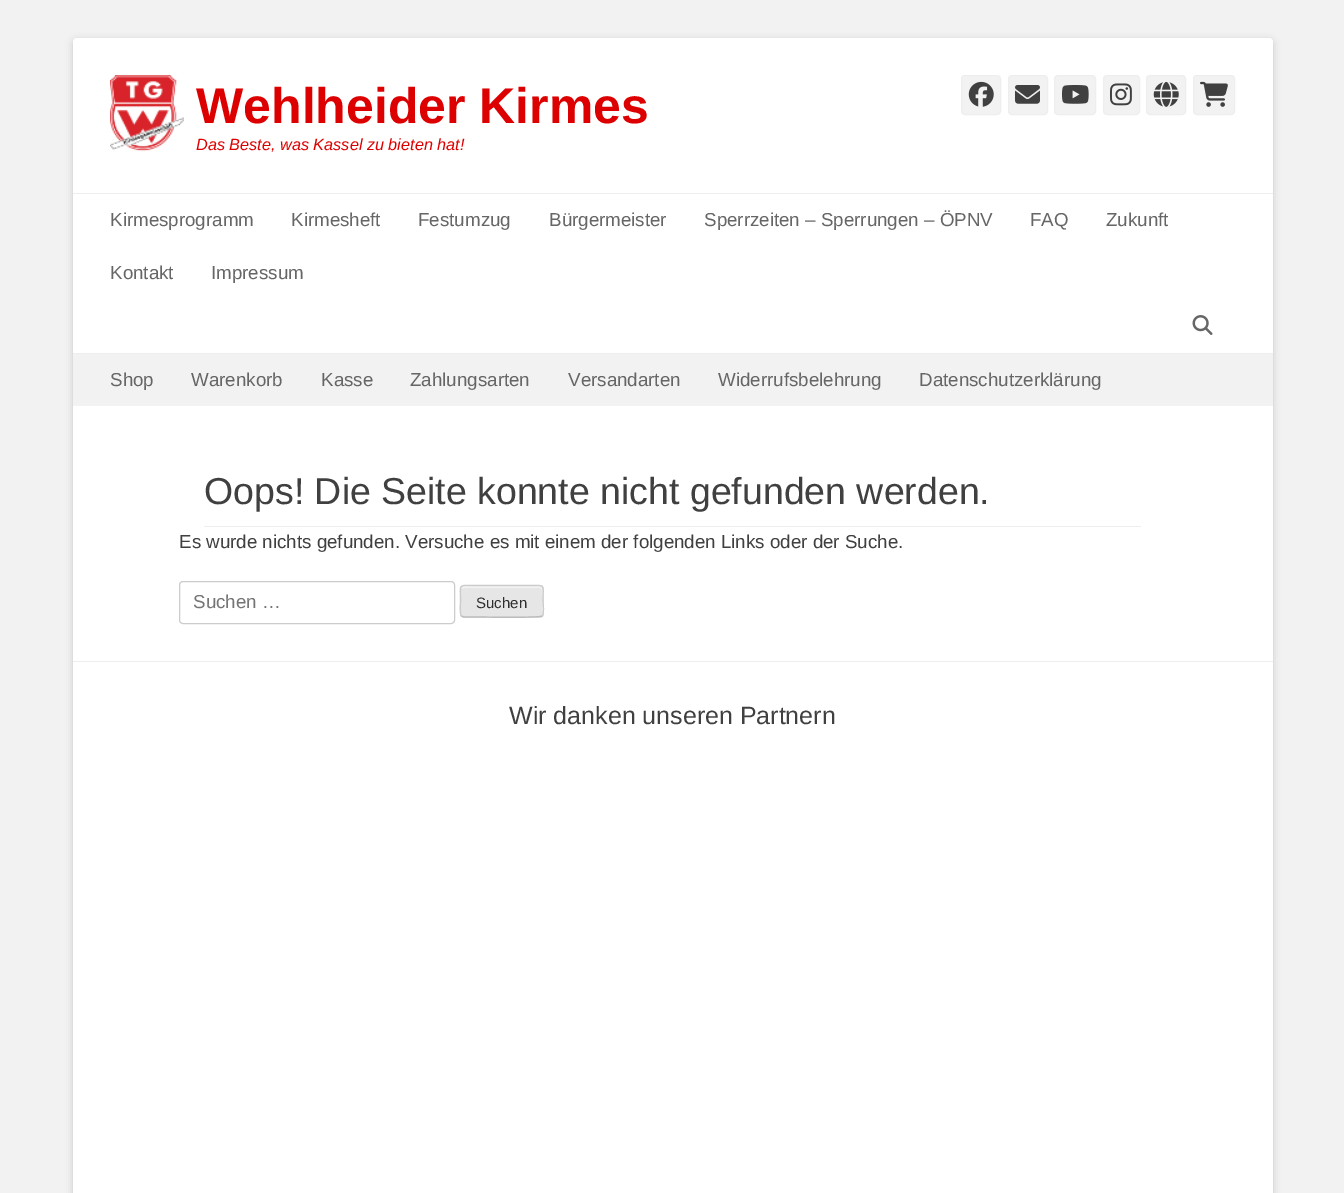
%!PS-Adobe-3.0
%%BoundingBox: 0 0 1344 1193
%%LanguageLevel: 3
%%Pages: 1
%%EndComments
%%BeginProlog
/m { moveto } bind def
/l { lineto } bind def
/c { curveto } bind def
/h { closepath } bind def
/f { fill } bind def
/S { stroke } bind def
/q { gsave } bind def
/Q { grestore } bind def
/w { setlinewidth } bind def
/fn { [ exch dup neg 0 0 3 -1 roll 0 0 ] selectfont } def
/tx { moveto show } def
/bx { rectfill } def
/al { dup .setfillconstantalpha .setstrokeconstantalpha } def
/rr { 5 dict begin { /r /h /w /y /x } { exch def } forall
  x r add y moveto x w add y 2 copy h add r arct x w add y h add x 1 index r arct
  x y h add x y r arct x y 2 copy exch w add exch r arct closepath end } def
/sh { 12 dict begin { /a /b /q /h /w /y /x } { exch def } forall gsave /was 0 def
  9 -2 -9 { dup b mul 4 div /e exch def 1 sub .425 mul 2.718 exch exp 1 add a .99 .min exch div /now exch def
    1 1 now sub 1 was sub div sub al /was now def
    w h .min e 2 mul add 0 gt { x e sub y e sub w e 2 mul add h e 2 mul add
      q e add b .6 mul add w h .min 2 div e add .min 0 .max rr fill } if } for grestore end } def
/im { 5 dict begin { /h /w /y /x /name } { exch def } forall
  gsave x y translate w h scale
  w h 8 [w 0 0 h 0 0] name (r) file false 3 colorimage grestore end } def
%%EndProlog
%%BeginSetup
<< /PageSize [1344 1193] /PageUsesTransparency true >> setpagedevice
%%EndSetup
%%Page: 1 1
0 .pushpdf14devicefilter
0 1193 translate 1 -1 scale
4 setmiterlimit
0.949 setgray
0 0 1344 1193 bx
0.392 setgray
73 40 1200 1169 4 4 0.3 sh
1 setgray
73 38 1200 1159 4 rr f
(image0.raw) 110 75 74 77 im
/LiberationSans-Bold 50 fn
0.867 0 0 setrgbcolor
(Wehlheider Kirmes) 196 123 tx
/LiberationSans-Italic 16.25 fn
(Das Beste, was Kassel zu bieten hat!) 196 150 tx
0.949 setgray
961.5 75.5 39 39 3.5 rr q f Q
0.933 setgray
S
(image1.raw) 968 81 26 26 im
0.949 setgray
1008.5 75.5 39 39 3.5 rr q f Q
0.933 setgray
S
(image2.raw) 1015 85 25 19 im
0.949 setgray
1054.5 75.5 41 39 3.5 rr q f Q
0.933 setgray
S
(image3.raw) 1062 85 27 19 im
0.949 setgray
1103.5 75.5 36 39 3.5 rr q f Q
0.933 setgray
S
(image4.raw) 1110 83 22 23 im
0.949 setgray
1146.5 75.5 39 39 3.5 rr q f Q
0.933 setgray
S
(image5.raw) 1153 81 26 26 im
0.949 setgray
1193.5 75.5 41 39 3.5 rr q f Q
0.933 setgray
S
(image6.raw) 1200 81 28 26 im
73 193 1200 1 bx
73 353 1200 1 bx
/LiberationSans-Regular 18.75 fn
0.4 setgray
(Kirmesprogramm) 110 226 tx
(Kirmesheft) 291 226 tx
(Festumzug) 418 226 tx
(Bürgermeister) 549 226 tx
(Sperrzeiten – Sperrungen – ÖPNV) 704 226 tx
(FAQ) 1030 226 tx
(Zukunft) 1106 226 tx
(Kontakt) 110 279 tx
(Impressum) 211 279 tx
(image7.raw) 1192 315 21 20 im
0.949 setgray
73 354 1200 52 bx
0.4 setgray
(Shop) 110 386 tx
(Warenkorb) 191 386 tx
(Kasse) 321 386 tx
(Zahlungsarten) 410 386 tx
(Versandarten) 568 386 tx
(Widerrufsbelehrung) 718 386 tx
(Datenschutzerklärung) 919 386 tx
0.933 setgray
204 526 937 1 bx
/LiberationSans-Regular 37.5 fn
0.251 setgray
(Oops! Die Seite konnte nicht gefunden werden.) 204 504 tx
/LiberationSans-Regular 18.75 fn
(Es wurde nichts gefunden. Versuche es mit einem der folgenden Links oder der Suche.) 179 548 tx
0.8 setgray
179.5 581.5 275 42 3.5 rr S
0.459 setgray
(Suchen …) 193 608 tx
0.902 setgray
460 585 84 33 4 rr f
0.953 setgray
464 588 m 527 588 l 543 588 542 585 542 598 c 542 616 l 544 614 543 604 543 601 c 543 583 546 586 528 586 c 476 586 l 471 586 461 583 461 590 c 461 589 462 588 464 588 c h f
0.733 setgray
1.2 w
542 616 m 540 618 484 617 476.5 617 c 464 617 l 461.5 616 l S
0.8 setgray
461.5 616 m 459.5 614 460.5 604 460.5 601 c 460.5 583 457.5 585.5 476.5 585.5 c 527.5 585.5 l 546 585.5 543 583 543 601 c 543 604 544.5 614 542 616 c S
/LiberationSans-Regular 15 fn
0.18 setgray
(Suchen) 476 608 tx
0.933 setgray
73 661 1200 1 bx
/LiberationSans-Regular 25 fn
0.251 setgray
(Wir danken unseren Partnern) 509 724 tx
.poppdf14devicefilter showpage
%%EOF
